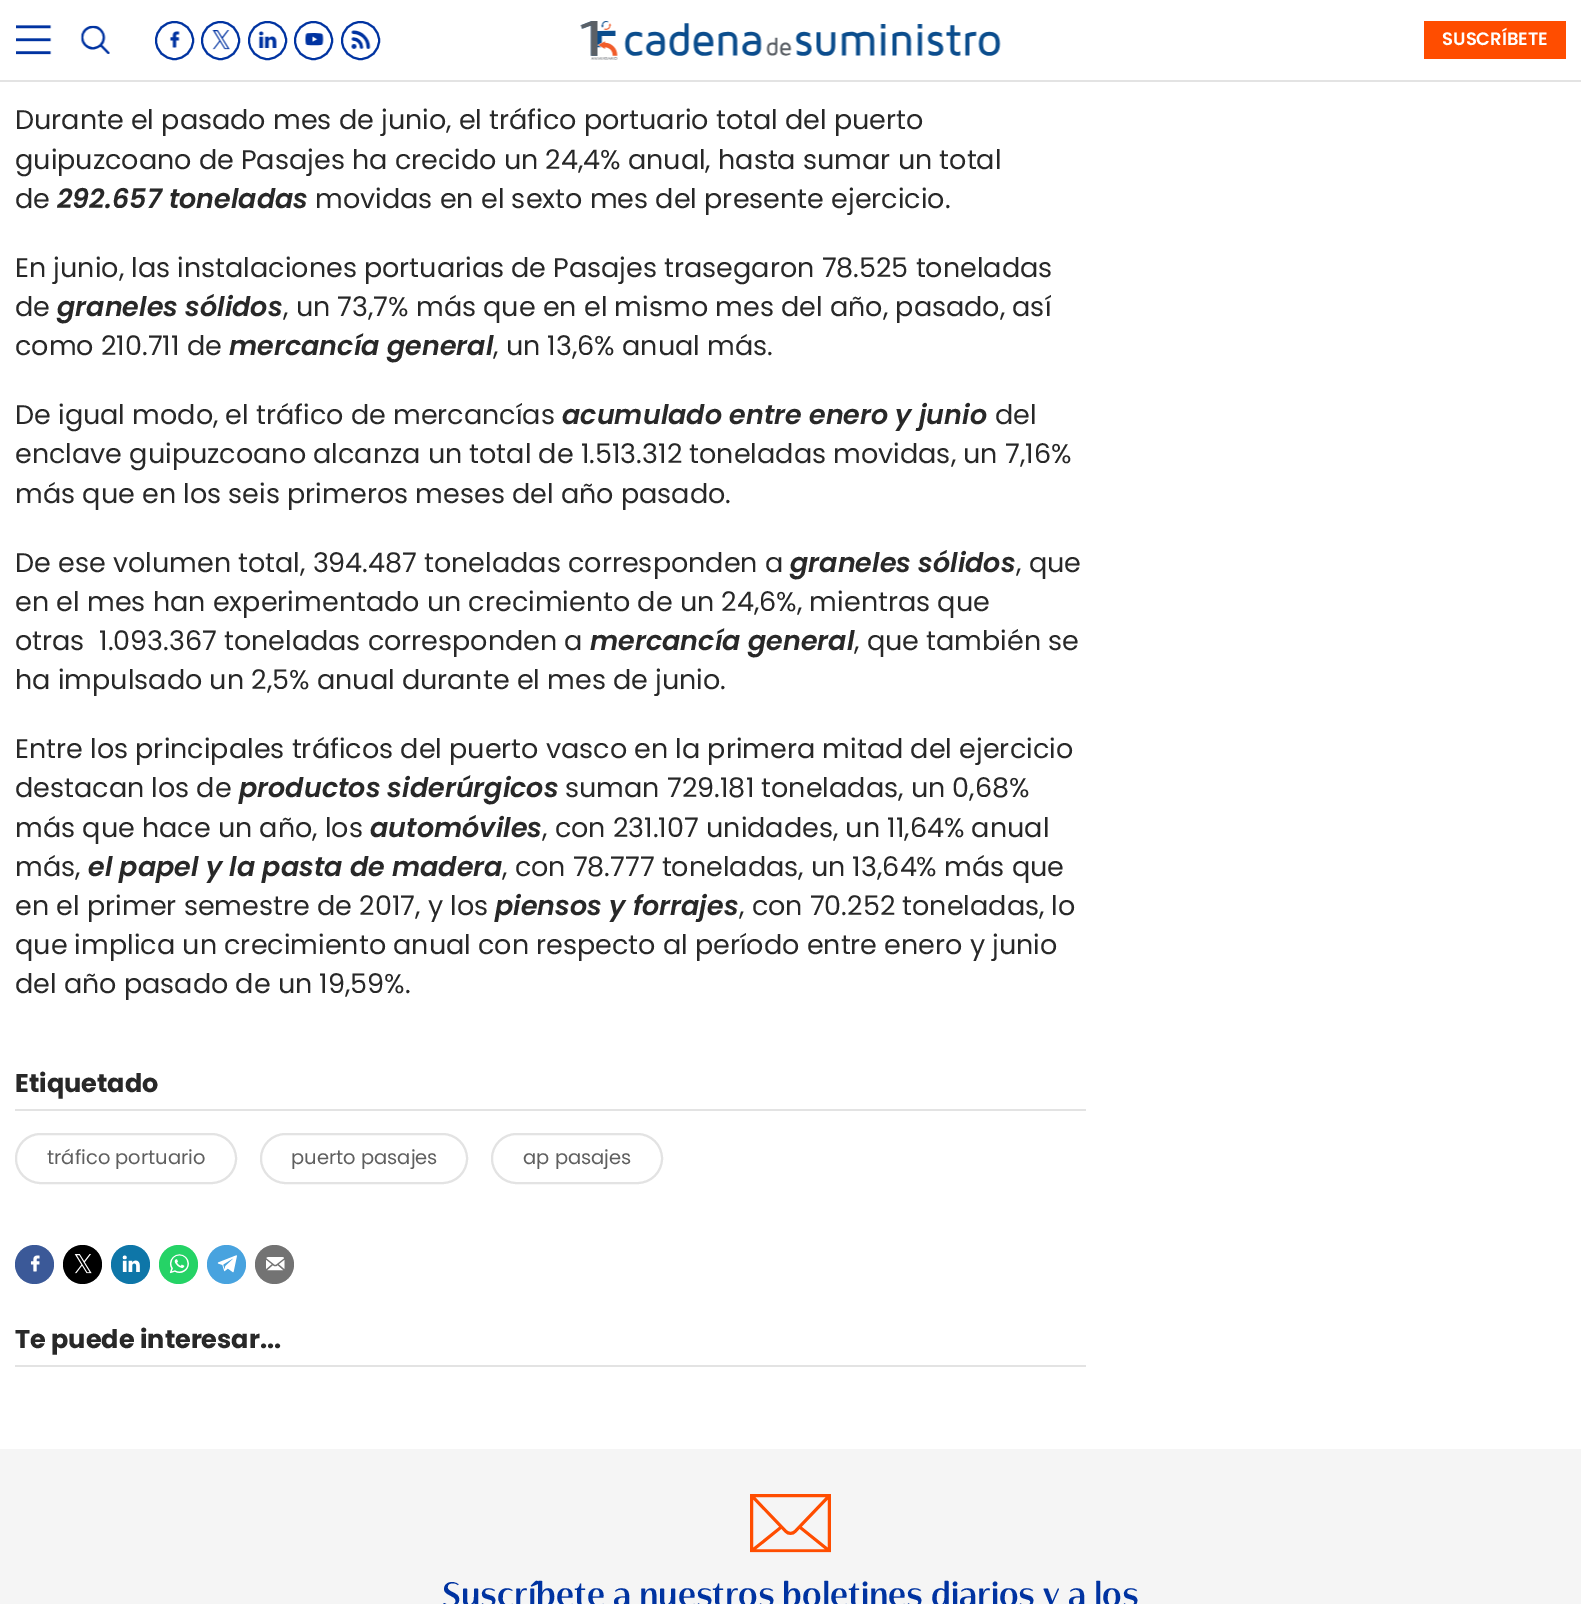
%!PS-Adobe-3.0
%%BoundingBox: 0 0 1581 1604
%%LanguageLevel: 3
%%Pages: 1
%%EndComments
%%BeginProlog
/f { fill } bind def
/S { stroke } bind def
/w { setlinewidth } bind def
/fn { [ exch dup neg 0 0 3 -1 roll 0 0 ] selectfont } def
/tx { moveto show } def
/bx { rectfill } def
/ci { newpath 0 360 arc closepath } def
/rr { 5 dict begin { /r /h /w /y /x } { exch def } forall
  x r add y moveto x w add y 2 copy h add r arct x w add y h add x 1 index r arct
  x y h add x y r arct x y 2 copy exch w add exch r arct closepath end } def
/im { 5 dict begin { /h /w /y /x /name } { exch def } forall
  gsave x y translate w h scale
  w h 8 [w 0 0 h 0 0] name (r) file false 3 colorimage grestore end } def
%%EndProlog
%%BeginSetup
<< /PageSize [1581 1604] >> setpagedevice
%%EndSetup
%%Page: 1 1
0 1604 translate 1 -1 scale
4 setmiterlimit
1 setgray
0 0 1581 1604 bx
0.89 setgray
0 80 1581 2 bx
(image0.raw) 16 25 36 30 im
(image1.raw) 80 25 30 29 im
0 0.2 0.631 setrgbcolor
2 w
174.5 40.5 18.5 ci S
(image2.raw) 169 31 11 17 im
220.5 40.5 18.5 ci S
(image3.raw) 212 30 18 20 im
267.5 40.5 18.5 ci S
(image4.raw) 258 31 19 17 im
313.5 40.5 18.5 ci S
(image5.raw) 304 33 20 13 im
360.5 40.5 18.5 ci S
(image6.raw) 351 30 20 19 im
(image7.raw) 580 21 421 39 im
1 0.302 0 setrgbcolor
1424 21 142 38 bx
/Poppins-SemiBold 18 fn
1 setgray
(SUSCRÍBETE) 1442 45 tx
/Poppins-Regular 27 fn
0.157 setgray
(Durante el pasado mes de junio, el tráfico portuario total del puerto) 15 129 tx
(guipuzcoano de Pasajes ha crecido un 24,4% anual, hasta sumar un total) 15 169 tx
(de) 15 208 tx
/Poppins-SemiBoldItalic 27 fn
(292.657 toneladas) 57 208 tx
/Poppins-Regular 27 fn
(movidas en el sexto mes del presente ejercicio.) 315 208 tx
(En junio, las instalaciones portuarias de Pasajes trasegaron 78.525 toneladas) 15 277 tx
(de) 15 316 tx
/Poppins-SemiBoldItalic 27 fn
(graneles sólidos) 57 316 tx
/Poppins-Regular 27 fn
(, un 73,7% más que en el mismo mes del año, pasado, así) 283 316 tx
(como 210.711 de) 15 355 tx
/Poppins-SemiBoldItalic 27 fn
(mercancía general) 229 355 tx
/Poppins-Regular 27 fn
(, un 13,6% anual más.) 493 355 tx
(De igual modo, el tráfico de mercancías) 15 424 tx
/Poppins-SemiBoldItalic 27 fn
(acumulado entre enero y junio) 562 424 tx
/Poppins-Regular 27 fn
(del) 995 424 tx
(enclave guipuzcoano alcanza un total de 1.513.312 toneladas movidas, un 7,16%) 15 463 tx
(más que en los seis primeros meses del año pasado.) 15 503 tx
(De ese volumen total, 394.487 toneladas corresponden a) 15 572 tx
/Poppins-SemiBoldItalic 27 fn
(graneles sólidos) 790 572 tx
/Poppins-Regular 27 fn
(, que) 1016 572 tx
(en el mes han experimentado un crecimiento de un 24,6%, mientras que) 15 611 tx
(otras  1.093.367 toneladas corresponden a) 15 650 tx
/Poppins-SemiBoldItalic 27 fn
(mercancía general) 590 650 tx
/Poppins-Regular 27 fn
(, que también se) 854 650 tx
(ha impulsado un 2,5% anual durante el mes de junio.) 15 689 tx
(Entre los principales tráficos del puerto vasco en la primera mitad del ejercicio) 15 758 tx
(destacan los de) 15 797 tx
/Poppins-SemiBoldItalic 27 fn
(productos siderúrgicos) 239 797 tx
/Poppins-Regular 27 fn
(suman 729.181 toneladas, un 0,68%) 565 797 tx
(más que hace un año, los) 15 837 tx
/Poppins-SemiBoldItalic 27 fn
(automóviles) 370 837 tx
/Poppins-Regular 27 fn
(, con 231.107 unidades, un 11,64% anual) 542 837 tx
(más,) 15 876 tx
/Poppins-SemiBoldItalic 27 fn
(el papel y la pasta de madera) 88 876 tx
/Poppins-Regular 27 fn
(, con 78.777 toneladas, un 13,64% más que) 502 876 tx
(en el primer semestre de 2017, y los) 15 915 tx
/Poppins-SemiBoldItalic 27 fn
(piensos y forrajes) 495 915 tx
/Poppins-Regular 27 fn
(, con 70.252 toneladas, lo) 739 915 tx
(que implica un crecimiento anual con respecto al período entre enero y junio) 15 954 tx
(del año pasado de un 19,59%.) 15 993 tx
0.89 setgray
15 1109 1071 2 bx
/Poppins-Bold 25.5 fn
0.157 setgray
(Etiquetado) 15 1092 tx
0.89 setgray
16 1134 220 49 24.5 rr S
/Poppins-Regular 19.5 fn
0.373 setgray
(tráfico portuario) 47 1164 tx
0.89 setgray
261 1134 206 49 24.5 rr S
0.373 setgray
(puerto pasajes) 291 1164 tx
0.89 setgray
492 1134 170 49 24.5 rr S
0.373 setgray
(ap pasajes) 523 1164 tx
0.231 0.349 0.596 setrgbcolor
34.5 1264.5 19.5 ci f
(image8.raw) 30 1255 10 17 im
0 setgray
82.5 1264.5 19.5 ci f
(image9.raw) 74 1254 18 20 im
0.055 0.463 0.659 setrgbcolor
130.5 1264.5 19.5 ci f
(image10.raw) 122 1255 18 17 im
0.145 0.827 0.4 setrgbcolor
178.5 1264.5 19.5 ci f
(image11.raw) 169 1254 20 20 im
0.282 0.639 0.875 setrgbcolor
226.5 1264.5 19.5 ci f
(image12.raw) 217 1255 20 18 im
0.451 setgray
274.5 1264.5 19.5 ci f
(image13.raw) 266 1257 19 14 im
0.89 setgray
15 1365 1071 2 bx
/Poppins-Bold 25.5 fn
0.157 setgray
(Te puede interesar...) 15 1348 tx
0.961 setgray
0 1449 1581 155 bx
(image14.raw) 750 1494 81 59 im
/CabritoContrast-ExtraBold 33.85 fn
0 0.2 0.631 setrgbcolor
(Suscríbete a nuestros boletines diarios y a los) 442 1606 tx
showpage
%%EOF
